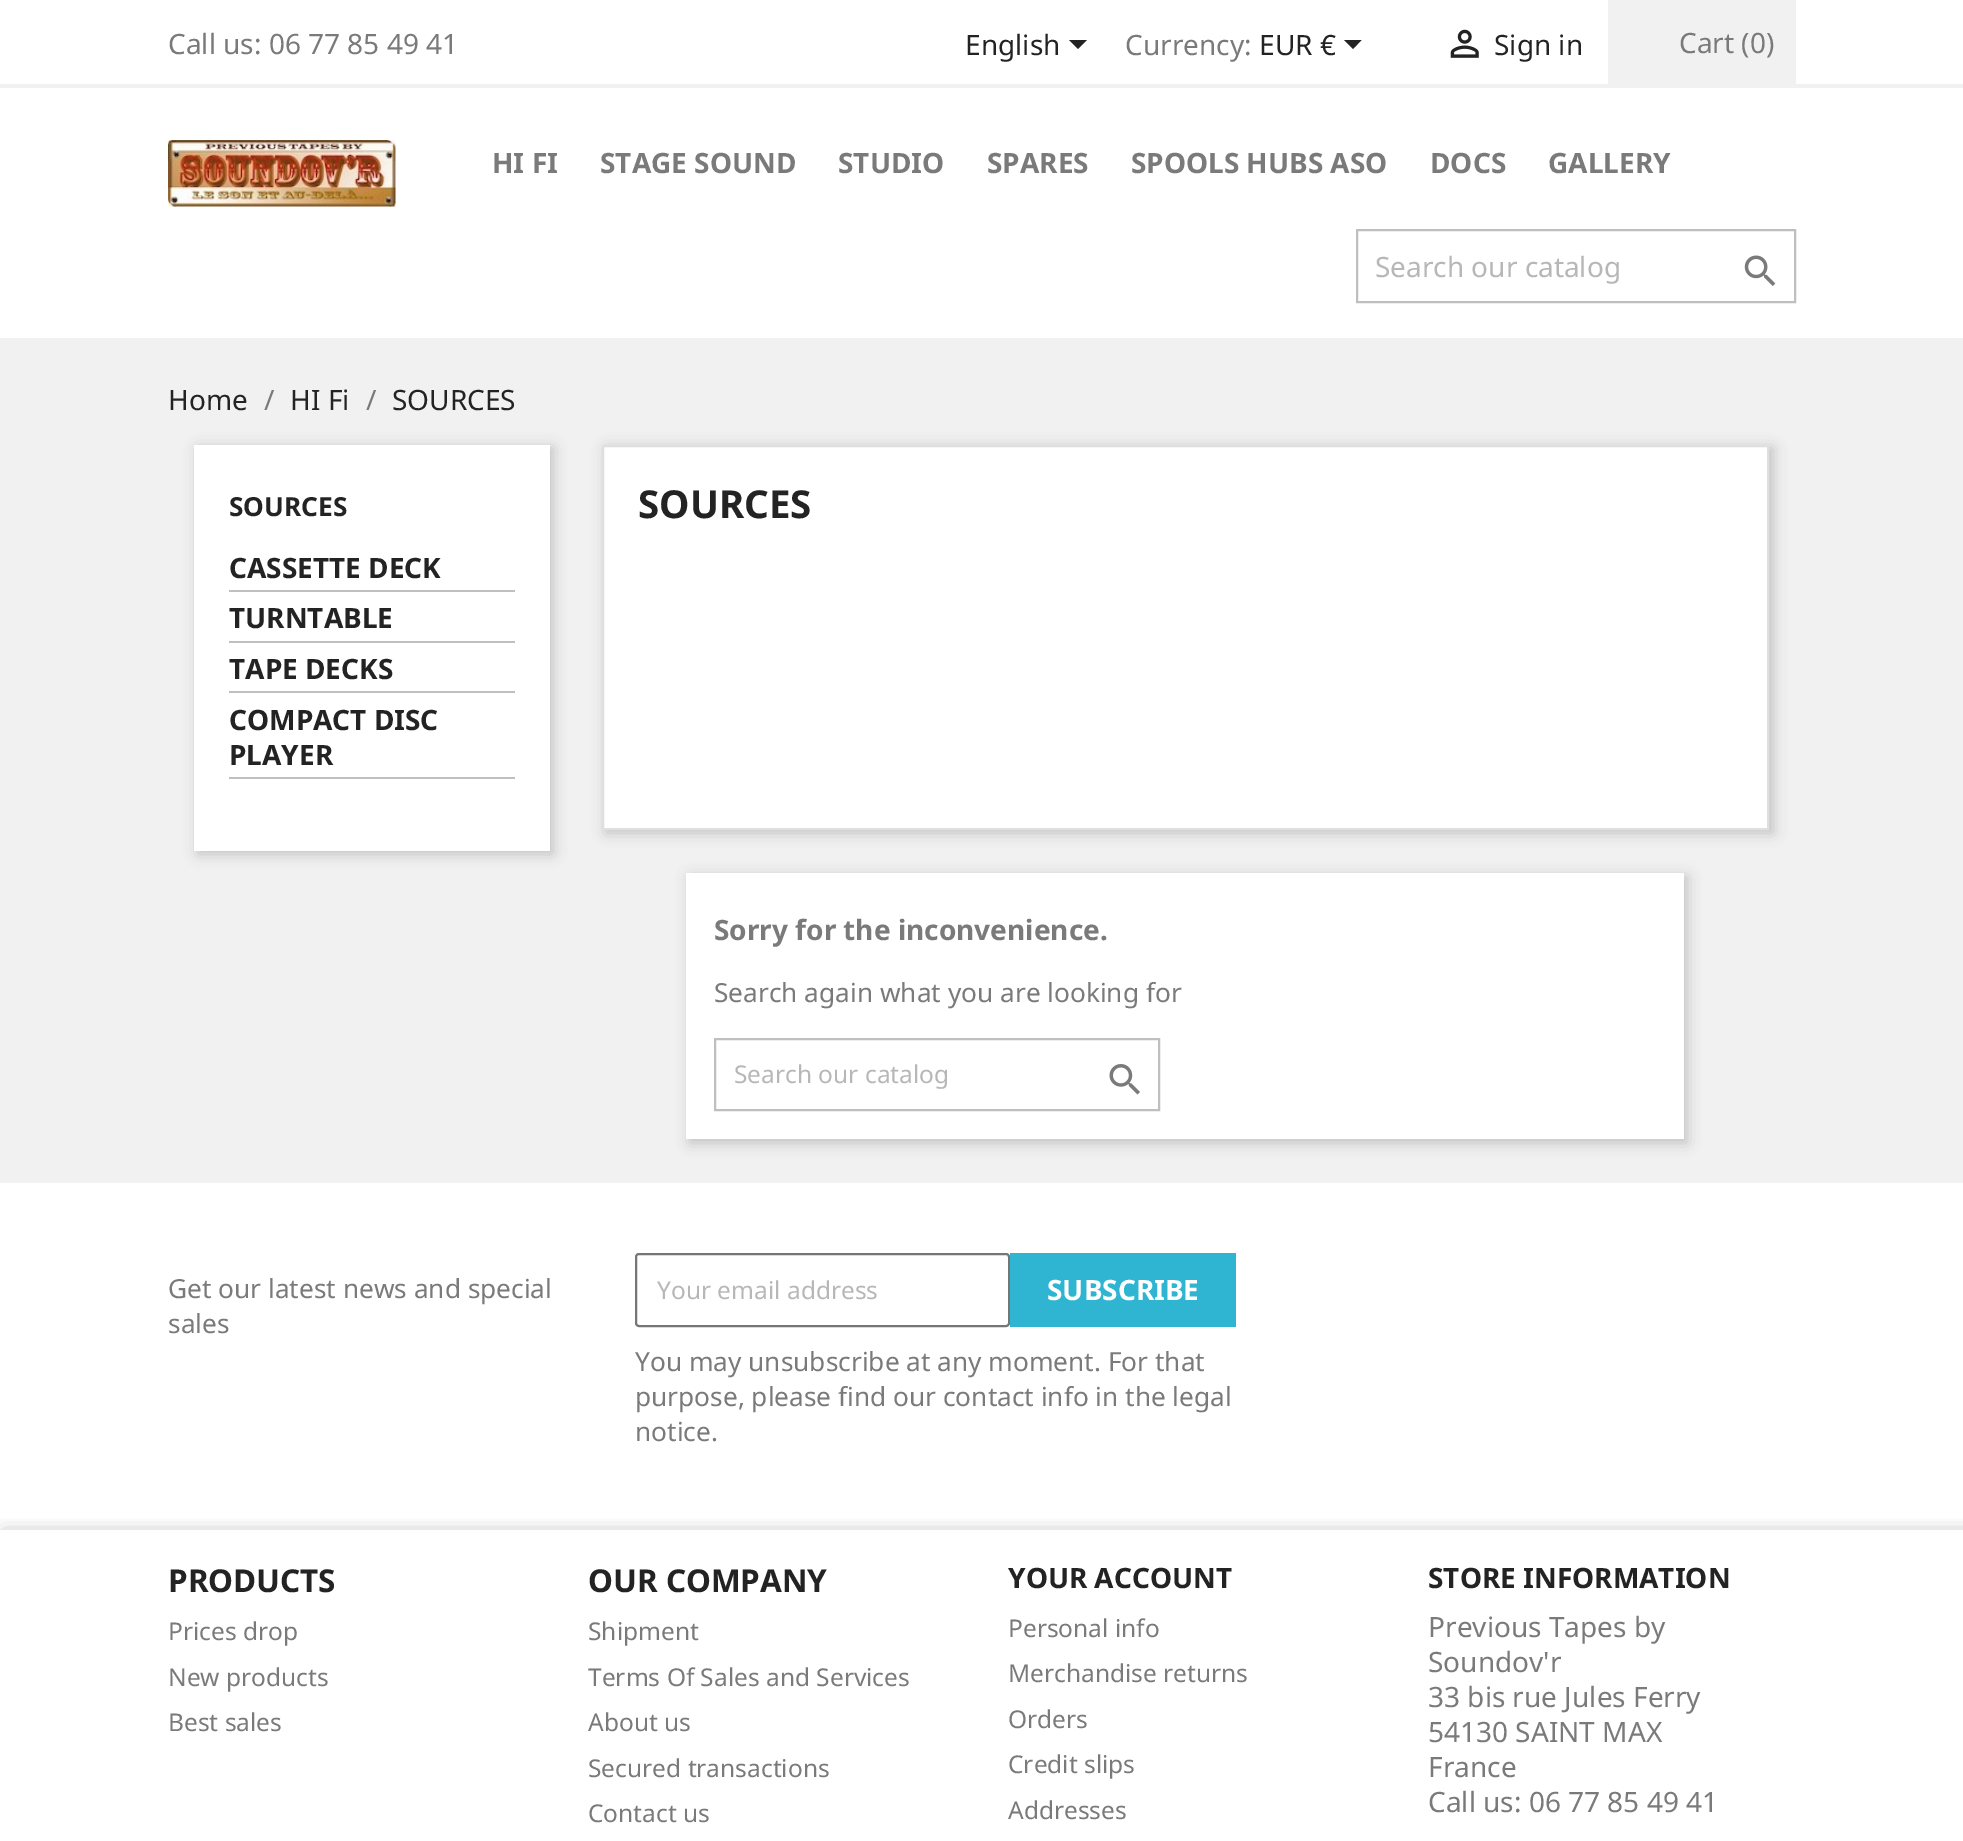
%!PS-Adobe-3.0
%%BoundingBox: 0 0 1963 1841
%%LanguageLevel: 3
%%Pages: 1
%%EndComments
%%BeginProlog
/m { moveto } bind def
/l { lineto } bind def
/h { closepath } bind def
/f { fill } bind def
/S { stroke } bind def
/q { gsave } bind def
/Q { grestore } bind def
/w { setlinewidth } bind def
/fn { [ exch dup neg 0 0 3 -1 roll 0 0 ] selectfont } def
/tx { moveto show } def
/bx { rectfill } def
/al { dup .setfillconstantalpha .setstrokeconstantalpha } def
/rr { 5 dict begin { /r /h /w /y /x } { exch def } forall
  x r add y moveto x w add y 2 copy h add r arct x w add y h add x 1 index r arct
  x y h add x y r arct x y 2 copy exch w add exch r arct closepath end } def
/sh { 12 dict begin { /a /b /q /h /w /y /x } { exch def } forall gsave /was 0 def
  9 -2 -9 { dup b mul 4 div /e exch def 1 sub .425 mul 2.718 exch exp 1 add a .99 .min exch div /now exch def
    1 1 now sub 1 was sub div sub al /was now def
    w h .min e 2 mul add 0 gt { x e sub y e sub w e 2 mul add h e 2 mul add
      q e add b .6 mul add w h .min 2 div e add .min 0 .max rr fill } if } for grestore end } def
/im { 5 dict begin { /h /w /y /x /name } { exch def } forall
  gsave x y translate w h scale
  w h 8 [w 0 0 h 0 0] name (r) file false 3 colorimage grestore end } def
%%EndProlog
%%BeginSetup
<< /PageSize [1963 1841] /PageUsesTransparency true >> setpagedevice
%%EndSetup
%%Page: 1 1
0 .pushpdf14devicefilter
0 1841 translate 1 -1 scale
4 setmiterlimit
1 setgray
0 0 1963 1841 bx
0.945 setgray
0 84 1963 4 bx
/NotoSans-Regular 28 fn
0.478 setgray
(Call us: 06 77 85 49 41) 168 54 tx
0.137 setgray
(English) 965 55 tx
1069 40 m 1087 40 l 1078 49 l h f
0.478 setgray
(Currency:) 1125 55 tx
0.137 setgray
(EUR €) 1259 55 tx
1344 40 m 1361.5 40 l 1353 49 l h f
(image0.raw) 1450 29 29 29 im
(Sign in) 1494 55 tx
0.945 setgray
1608 0 188 84 bx
0.478 setgray
(Cart \(0\)) 1679 53 tx
(image1.raw) 168 140 228 67 im
/NotoSans-Bold 28 fn
(HI FI) 492 173 tx
(STAGE SOUND) 600 173 tx
(STUDIO) 838 173 tx
(SPARES) 987 173 tx
(SPOOLS HUBS ASO) 1131 173 tx
(DOCS) 1430 173 tx
(GALLERY) 1548 173 tx
0.749 setgray
2 w
1357 230 438 72 rectstroke
/NotoSans-Regular 28 fn
0.718 setgray
(Search our catalog) 1375 277 tx
(image2.raw) 1744 255 32 31 im
0.945 setgray
0 338 1963 845 bx
0.137 setgray
(Home) 168 410 tx
0.478 setgray
(/) 264 410 tx
0.137 setgray
(HI Fi) 290 410 tx
0.478 setgray
(/) 366 410 tx
0.137 setgray
(SOURCES) 392 410 tx
0 setgray
198 448 355 406 0 7 0.2 sh
1 setgray
194 445 356 406 bx
/NotoSans-Bold 26.25 fn
0.137 setgray
(SOURCES) 229 516 tx
0.749 setgray
229 590 286 2 bx
/NotoSans-Bold 28 fn
0.137 setgray
(CASSETTE DECK) 229 578 tx
0.749 setgray
229 641 286 2 bx
0.137 setgray
(TURNTABLE) 229 628 tx
0.749 setgray
229 691 286 2 bx
0.137 setgray
(TAPE DECKS) 229 679 tx
0.749 setgray
229 777 286 2 bx
0.137 setgray
(COMPACT DISC) 229 730 tx
(PLAYER) 229 765 tx
0 setgray
606 448 1167 385 0 7 0.2 sh
1 setgray
603 446 m 1768 446 l 1768 829 l 603 829 l h q f Q
0.875 setgray
S
/NotoSans-Bold 38.5 fn
0.137 setgray
(SOURCES) 638 518 tx
0 setgray
690 877 997 266 0 7 0.2 sh
1 setgray
686 873 998 266 bx
/NotoSans-Bold 28 fn
0.478 setgray
(Sorry for the inconvenience.) 714 940 tx
/NotoSans-Regular 26.25 fn
(Search again what you are looking for) 714 1002 tx
0.749 setgray
715 1039 444 71 rectstroke
/NotoSans-Regular 24.5 fn
0.718 setgray
(Search our catalog) 734 1083 tx
(image3.raw) 1109 1064 31 31 im
/NotoSans-Regular 26.25 fn
0.478 setgray
(Get our latest news and special) 168 1298 tx
(sales) 168 1333 tx
0.463 setgray
636 1254 373 72 3 rr S
/NotoSans-Regular 24.5 fn
0.718 setgray
(Your email address) 657 1299 tx
0.184 0.71 0.824 setrgbcolor
1010 1253 226 74 bx
/NotoSans-Bold 28 fn
1 setgray
(SUBSCRIBE) 1047 1300 tx
/NotoSans-Regular 26.25 fn
0.478 setgray
(You may unsubscribe at any moment. For that) 635 1371 tx
(purpose, please find our contact info in the legal) 635 1406 tx
(notice.) 635 1441 tx
q
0 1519 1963 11 rectclip
0 setgray
4 1533 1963 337 0 9.5 0.3 sh
Q
/NotoSans-Bold 31.5 fn
0.137 setgray
(PRODUCTS) 168 1592 tx
/NotoSans-Regular 24.5 fn
0.478 setgray
(Prices drop) 168 1640 tx
(New products) 168 1686 tx
(Best sales) 168 1731 tx
/NotoSans-Bold 31.5 fn
0.137 setgray
(OUR COMPANY) 588 1592 tx
/NotoSans-Regular 24.5 fn
0.478 setgray
(Shipment) 588 1640 tx
(Terms Of Sales and Services) 588 1686 tx
(About us) 588 1731 tx
(Secured transactions) 588 1777 tx
(Contact us) 588 1822 tx
/NotoSans-Bold 28 fn
0.137 setgray
(YOUR ACCOUNT) 1008 1588 tx
/NotoSans-Regular 24.5 fn
0.478 setgray
(Personal info) 1008 1637 tx
(Merchandise returns) 1008 1682 tx
(Orders) 1008 1728 tx
(Credit slips) 1008 1773 tx
(Addresses) 1008 1819 tx
/NotoSans-Bold 28 fn
0.137 setgray
(STORE INFORMATION) 1428 1588 tx
/NotoSans-Regular 28 fn
0.478 setgray
(Previous Tapes by) 1428 1637 tx
(Soundov'r) 1428 1672 tx
(33 bis rue Jules Ferry) 1428 1707 tx
(54130 SAINT MAX) 1428 1742 tx
(France) 1428 1777 tx
(Call us: 06 77 85 49 41) 1428 1812 tx
.poppdf14devicefilter showpage
%%EOF
